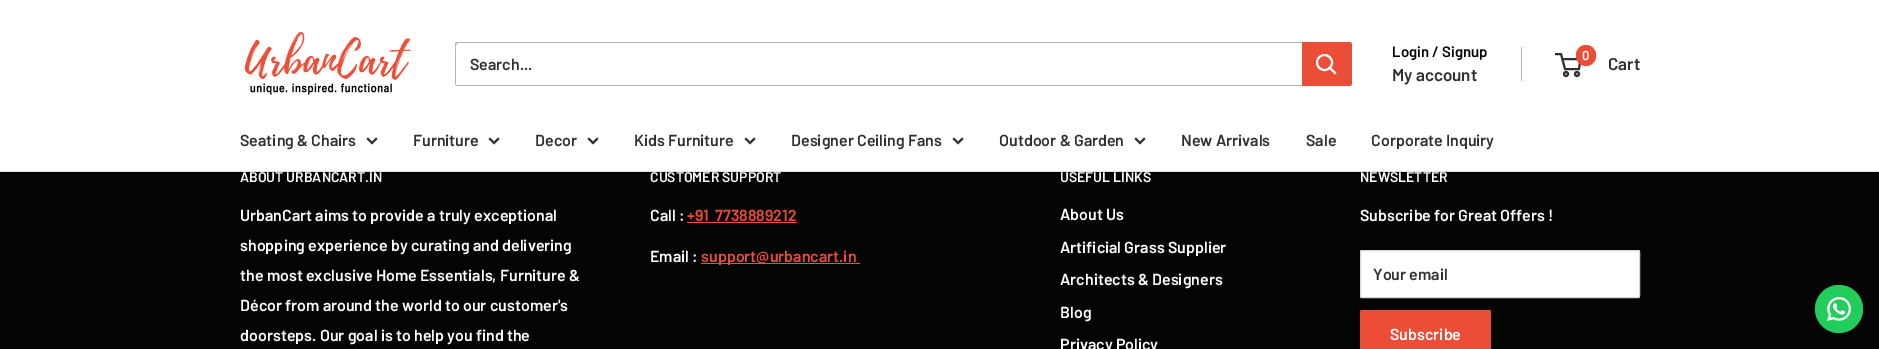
%!PS-Adobe-3.0
%%BoundingBox: 0 0 1879 349
%%LanguageLevel: 3
%%Pages: 1
%%EndComments
%%BeginProlog
/m { moveto } bind def
/l { lineto } bind def
/c { curveto } bind def
/h { closepath } bind def
/f { fill } bind def
/S { stroke } bind def
/w { setlinewidth } bind def
/fn { [ exch dup neg 0 0 3 -1 roll 0 0 ] selectfont } def
/tx { moveto show } def
/bx { rectfill } def
/ci { newpath 0 360 arc closepath } def
/rr { 5 dict begin { /r /h /w /y /x } { exch def } forall
  x r add y moveto x w add y 2 copy h add r arct x w add y h add x 1 index r arct
  x y h add x y r arct x y 2 copy exch w add exch r arct closepath end } def
/im { 5 dict begin { /h /w /y /x /name } { exch def } forall
  gsave x y translate w h scale
  w h 8 [w 0 0 h 0 0] name (r) file false 3 colorimage grestore end } def
%%EndProlog
%%BeginSetup
<< /PageSize [1879 349] >> setpagedevice
%%EndSetup
%%Page: 1 1
0 349 translate 1 -1 scale
4 setmiterlimit
0.016 setgray
0 0 1879 349 bx
1 setgray
0 0 1879 171 bx
(image0.raw) 244 31 167 64 im
0.706 setgray
456 85 m 456 86 457 86 458 86 c 1349 86 l 1351 86 1352 85 1352 83 c 1352 45 l 1352 44 1352 43 1351 43 c 1351 76 l 1351 78 1353 85 1348 85 c h f
459 43 m 1351 43 l 1351 42 1350 42 1349 42 c 458 42 l 456 42 455 43 455 45 c 455 83 l 455 84 455 85 456 85 c 456 52 l 456 50 454 43 459 43 c h f
/Barlow-SemiBold 16 fn
0.192 setgray
(Search...) 470 70 tx
0.925 0.302 0.216 setrgbcolor
1302 42 m 1349 42 l 1350.5 42 1352 43.5 1352 45 c 1352 83 l 1352 84.5 1350.5 86 1349 86 c 1302 86 l h f
1 setgray
2 w
2 setlinecap
1335 73 m 1330 68 l S
0 setlinecap
1324.5 62.5 7.5 ci S
/Barlow-SemiBold 15 fn
0.016 setgray
(Login / Signup) 1392 57 tx
0.706 setgray
1521 47 1 34 bx
/Barlow-SemiBold 17 fn
0.192 setgray
(My account) 1392 81 tx
1566 74 2 ci S
1577 74 2 ci S
1562.5 59 m 1580.5 59 l 1579 69 l 1565 69 l 1561 54 l 1555 54 l S
0.925 0.302 0.216 setrgbcolor
1576 45 20 21 10 rr f
/Barlow-SemiBold 13 fn
1 setgray
(0) 1582 60 tx
/Barlow-SemiBold 17 fn
0.192 setgray
(Cart) 1608 70 tx
0.882 0.89 0.894 setrgbcolor
0 171 1879 1 bx
/Barlow-SemiBold 16 fn
0.192 setgray
(Seating & Chairs) 240 146 tx
2 setlinecap
376 139 m 372 143 l 368 139 l S
(Furniture) 413 146 tx
498 139 m 494 143 l 490 139 l S
(Decor) 535 146 tx
597 139 m 593 143 l 589 139 l S
(Kids Furniture) 634 146 tx
754 139 m 750 143 l 746 139 l S
(Designer Ceiling Fans) 791 146 tx
962 139 m 958 143 l 954 139 l S
(Outdoor & Garden) 999 146 tx
1144 139 m 1140 143 l 1136 139 l S
(New Arrivals) 1181 146 tx
(Sale) 1306 146 tx
(Corporate Inquiry) 1371 146 tx
/Barlow-SemiBold 14 fn
1 setgray
(ABOUT URBANCART.IN) 240 182 tx
/Barlow-SemiBold 16 fn
(UrbanCart aims to provide a truly exceptional) 240 221 tx
(shopping experience by curating and delivering) 240 251 tx
(the most exclusive Home Essentials, Furniture &) 240 281 tx
(Décor from around the world to our customer's) 240 311 tx
(doorsteps. Our goal is to help you find the) 240 341 tx
/Barlow-SemiBold 14 fn
(CUSTOMER SUPPORT) 650 182 tx
/Barlow-SemiBold 16 fn
(Call :) 650 221 tx
0.925 0.302 0.216 setrgbcolor
687 221 m 3 0 32 (+91 7738889212) widthshow
687 222 110 1 bx
1 setgray
(Email :) 650 262 tx
0.925 0.302 0.216 setrgbcolor
701 263 159 1 bx
(support@urbancart.in) 701 262 tx
/Barlow-SemiBold 14 fn
1 setgray
(USEFUL LINKS) 1060 182 tx
/Barlow-SemiBold 16 fn
(About Us) 1060 220 tx
(Artificial Grass Supplier) 1060 253 tx
(Architects & Designers) 1060 285 tx
(Blog) 1060 318 tx
(Privacy Policy) 1060 350 tx
/Barlow-SemiBold 14 fn
(NEWSLETTER) 1360 182 tx
/Barlow-SemiBold 16 fn
(Subscribe for Great Offers !) 1360 221 tx
1360 250 280 48 2 rr f
0.973 setgray
1362 252 m 1638 252 l 1639 252 1639 252 1639 253 c 1639 252 1639 251 1638 251 c 1362 251 l 1361 251 l 1361 253 l 1361 252 1361 252 1362 252 c h f
0.831 0.839 0.847 setrgbcolor
1 w
0 setlinecap
1360.5 250.5 279 47 1.5 rr S
0.192 setgray
(Your email) 1373 280 tx
0.925 0.302 0.216 setrgbcolor
1360 310 131 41 2 rr f
1 setgray
(Subscribe) 1390 340 tx
0.133 0.804 0.357 setrgbcolor
1839 309 24 ci f
(image1.raw) 1827 297 24 24 im
showpage
%%EOF
